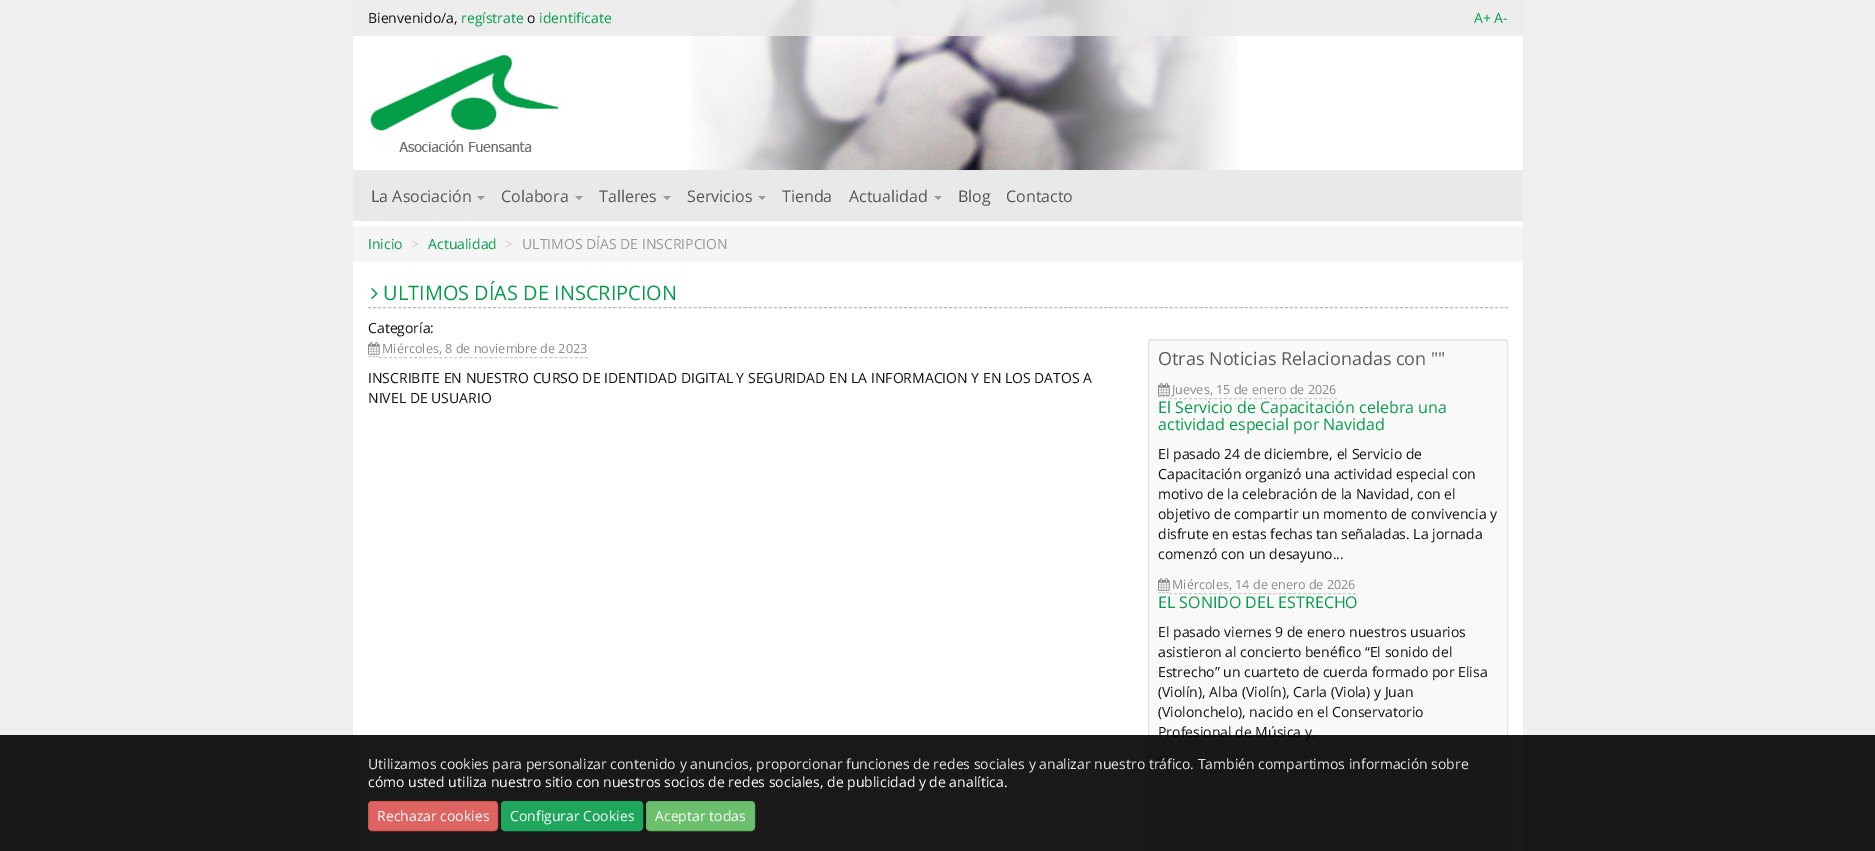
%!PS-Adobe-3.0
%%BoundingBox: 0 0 1875 851
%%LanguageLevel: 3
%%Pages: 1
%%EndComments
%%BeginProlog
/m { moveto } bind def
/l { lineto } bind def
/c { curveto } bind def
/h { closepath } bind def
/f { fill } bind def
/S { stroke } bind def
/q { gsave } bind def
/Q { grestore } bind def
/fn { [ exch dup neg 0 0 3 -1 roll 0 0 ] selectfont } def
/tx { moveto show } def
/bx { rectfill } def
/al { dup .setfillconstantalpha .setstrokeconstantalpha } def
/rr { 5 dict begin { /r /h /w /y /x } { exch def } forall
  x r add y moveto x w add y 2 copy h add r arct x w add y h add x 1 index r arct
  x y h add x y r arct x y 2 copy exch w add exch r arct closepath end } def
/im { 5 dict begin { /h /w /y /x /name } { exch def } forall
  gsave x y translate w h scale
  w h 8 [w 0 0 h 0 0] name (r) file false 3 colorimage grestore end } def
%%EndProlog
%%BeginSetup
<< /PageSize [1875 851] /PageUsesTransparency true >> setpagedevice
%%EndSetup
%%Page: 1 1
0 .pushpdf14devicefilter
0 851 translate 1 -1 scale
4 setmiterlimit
0.937 setgray
0 0 1875 851 bx
1 setgray
353 0 1170 170 bx
(image0.raw) 691 0 547 170 im
0.8 al
0.914 setgray
353 0 1170 36 bx
/OpenSans-Regular 14 fn
1 al
0.067 setgray
(Bienvenido/a,) 368 23 tx
0.02 0.616 0.29 setrgbcolor
(regístrate) 461 23 tx
0.067 setgray
(o) 527 23 tx
0.02 0.616 0.29 setrgbcolor
(identificate) 539 23 tx
(A+ A-) 1474 23 tx
(image1.raw) 370 55 188 97 im
1 setgray
353 221 1170 630 bx
0.914 setgray
353 170 1170 51 bx
/OpenSans-Regular 16 fn
0.333 setgray
(La Asociación) 371 202 tx
0.6 setgray
477 196 m 485 196 l 481 200 l h f
0.333 setgray
(Colabora) 501 202 tx
0.6 setgray
575 196 m 583 196 l 579 200 l h f
0.333 setgray
(Talleres) 599 202 tx
0.6 setgray
663 196 m 671 196 l 667 200 l h f
0.333 setgray
(Servicios) 687 202 tx
0.6 setgray
758 196 m 766 196 l 762 200 l h f
0.333 setgray
(Tienda) 782 202 tx
(Actualidad) 849 202 tx
0.6 setgray
934 196 m 942 196 l 938 200 l h f
0.333 setgray
(Blog) 958 202 tx
(Contacto) 1006 202 tx
0.961 setgray
353 226 1170 36 bx
/OpenSans-Regular 14 fn
0.02 0.616 0.29 setrgbcolor
(Inicio) 368 249 tx
0.8 setgray
(>) 411 249 tx
0.02 0.616 0.29 setrgbcolor
(Actualidad) 428 249 tx
0.8 setgray
(>) 505 249 tx
0.6 setgray
(ULTIMOS DÍAS DE INSCRIPCION) 522 249 tx
0.733 setgray
[3 2.01] 0 setdash
368 307.5 m 1508 307.5 l S
(image2.raw) 371 288 7 12 im
/OpenSans-Regular 20 fn
0.02 0.616 0.29 setrgbcolor
(ULTIMOS DÍAS DE INSCRIPCION) 383 300 tx
/OpenSans-Regular 14 fn
0.067 setgray
(Categoría:) 368 333 tx
0.8 setgray
[] 0 setdash
368 356.5 m 371 356.5 l 372 356.5 m 375 356.5 l 376 356.5 m 379 356.5 l S
[3 2.02] 0 setdash
379 357.5 m 588 357.5 l S
(image3.raw) 368 342 12 13 im
/OpenSans-Regular 12.6 fn
0.533 setgray
(Miércoles, 8 de noviembre de 2023) 382 353 tx
/OpenSans-Regular 14 fn
0.067 setgray
(INSCRIBITE EN NUESTRO CURSO DE IDENTIDAD DIGITAL Y SEGURIDAD EN LA INFORMACION Y EN LOS DATOS A) 368 383 tx
(NIVEL DE USUARIO) 368 403 tx
0.976 setgray
1148 339 360 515 3 rr f
0.929 setgray
1151 341 m 1505 341 l 1506 341 1507 342 1507 343 c 1507 342 1507 340 1505 340 c 1151 340 l 1149 340 1149 342 1149 343 c 1149 342 1150 341 1151 341 c h f
0.89 setgray
[] 0 setdash
1148.5 339.5 359 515 2.5 rr S
/OpenSans-Regular 18 fn
0.357 setgray
(Otras Noticias Relacionadas con "") 1158 365 tx
0.8 setgray
1158 396.5 m 1161 396.5 l 1162 396.5 m 1165 396.5 l 1166 396.5 m 1169 396.5 l S
[3 2] 0 setdash
1169 398.5 m 1337 398.5 l S
(image4.raw) 1158 383 12 13 im
/OpenSans-Regular 12.6 fn
0.533 setgray
(Jueves, 15 de enero de 2026) 1172 394 tx
/OpenSans-Regular 16 fn
0.02 0.616 0.29 setrgbcolor
(El Servicio de Capacitación celebra una) 1158 413 tx
(actividad especial por Navidad) 1158 430 tx
/OpenSans-Regular 14 fn
0.067 setgray
(El pasado 24 de diciembre, el Servicio de) 1158 459 tx
(Capacitación organizó una actividad especial con) 1158 479 tx
(motivo de la celebración de la Navidad, con el) 1158 499 tx
(objetivo de compartir un momento de convivencia y) 1158 519 tx
(disfrute en estas fechas tan señaladas. La jornada) 1158 539 tx
(comenzó con un desayuno...) 1158 559 tx
0.8 setgray
[] 0 setdash
1158 592.5 m 1161 592.5 l 1162 592.5 m 1165 592.5 l 1166 592.5 m 1169 592.5 l S
[3 1.97] 0 setdash
1169 593.5 m 1356 593.5 l S
(image4.raw) 1158 578 12 13 im
/OpenSans-Regular 12.6 fn
0.533 setgray
(Miércoles, 14 de enero de 2026) 1172 589 tx
/OpenSans-Regular 16 fn
0.02 0.616 0.29 setrgbcolor
(EL SONIDO DEL ESTRECHO) 1158 608 tx
/OpenSans-Regular 14 fn
0.067 setgray
(El pasado viernes 9 de enero nuestros usuarios) 1158 637 tx
(asistieron al concierto benéfico “El sonido del) 1158 657 tx
(Estrecho” un cuarteto de cuerda formado por Elisa) 1158 677 tx
(\(Violín\), Alba \(Violín\), Carla \(Viola\) y Juan) 1158 697 tx
(\(Violonchelo\), nacido en el Conservatorio) 1158 717 tx
(Profesional de Música y.) 1158 737 tx
0.8 setgray
[] 0 setdash
1158 769.5 m 1161 769.5 l 1162 769.5 m 1165 769.5 l 1166 769.5 m 1169 769.5 l S
[3 1.97] 0 setdash
1169 771.5 m 1361 771.5 l S
(image4.raw) 1158 756 12 13 im
0.9 al
0 setgray
0 735 1875 116 bx
1 al
0.91 setgray
(Utilizamos cookies para personalizar contenido y anuncios, proporcionar funciones de redes sociales y analizar nuestro tráfico. También compartimos información sobre) 368 769 tx
1 setgray
(cómo usted utiliza nuestro sitio con nuestros socios de redes sociales, de publicidad y de analítica.) 368 787 tx
0.867 0.392 0.38 setrgbcolor
368.5 801.5 129 29 3.5 rr q f Q
0.847 0.322 0.306 setrgbcolor
[] 0 setdash
S
1 setgray
(Rechazar cookies) 377 821 tx
0.118 0.655 0.361 setrgbcolor
501.5 801.5 141 29 3.5 rr q f Q
S
1 setgray
(Configurar Cookies) 510 821 tx
0.424 0.749 0.424 setrgbcolor
646.5 801.5 108 29 3.5 rr q f Q
0.369 0.714 0.369 setrgbcolor
S
1 setgray
(Aceptar todas) 655 821 tx
.poppdf14devicefilter showpage
%%EOF
